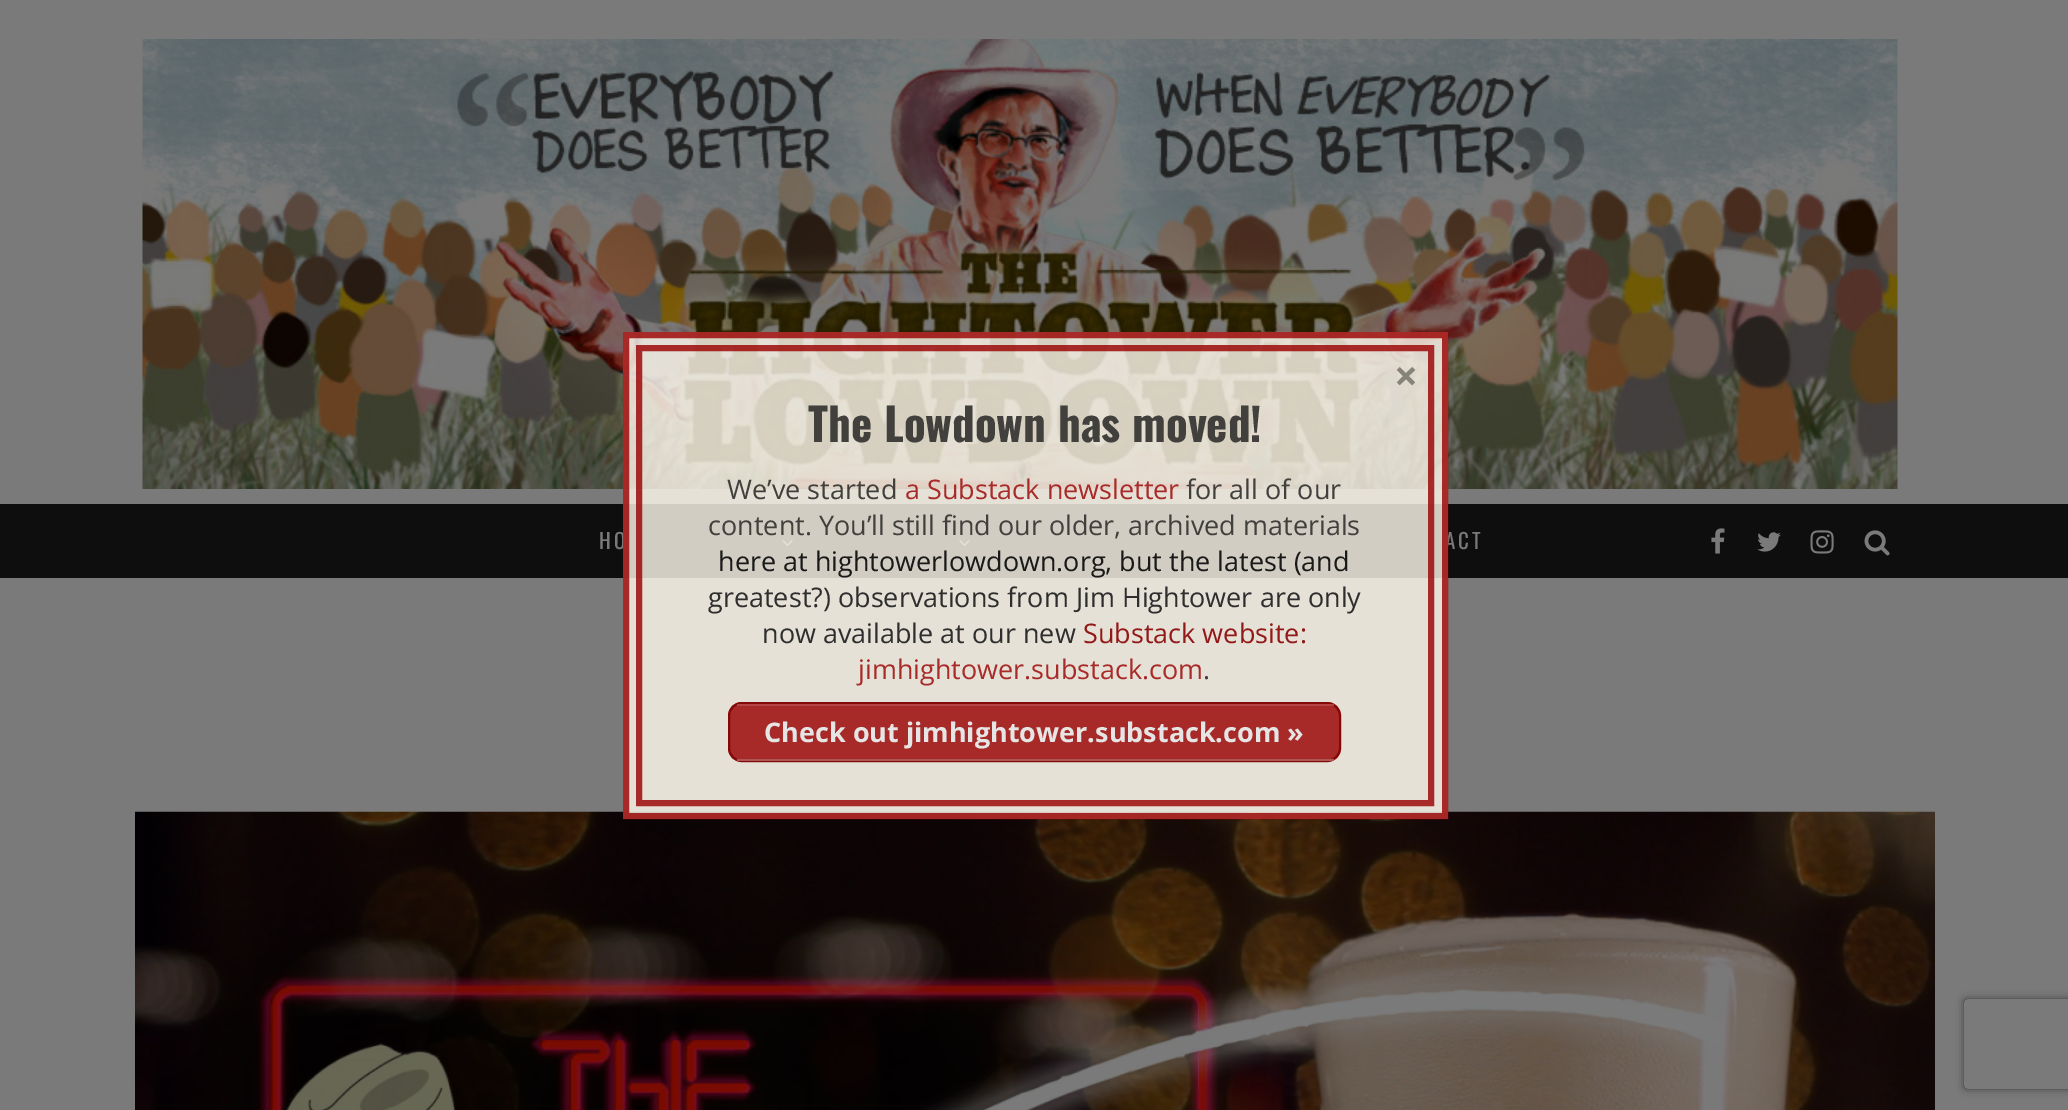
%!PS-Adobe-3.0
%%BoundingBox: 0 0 2068 1110
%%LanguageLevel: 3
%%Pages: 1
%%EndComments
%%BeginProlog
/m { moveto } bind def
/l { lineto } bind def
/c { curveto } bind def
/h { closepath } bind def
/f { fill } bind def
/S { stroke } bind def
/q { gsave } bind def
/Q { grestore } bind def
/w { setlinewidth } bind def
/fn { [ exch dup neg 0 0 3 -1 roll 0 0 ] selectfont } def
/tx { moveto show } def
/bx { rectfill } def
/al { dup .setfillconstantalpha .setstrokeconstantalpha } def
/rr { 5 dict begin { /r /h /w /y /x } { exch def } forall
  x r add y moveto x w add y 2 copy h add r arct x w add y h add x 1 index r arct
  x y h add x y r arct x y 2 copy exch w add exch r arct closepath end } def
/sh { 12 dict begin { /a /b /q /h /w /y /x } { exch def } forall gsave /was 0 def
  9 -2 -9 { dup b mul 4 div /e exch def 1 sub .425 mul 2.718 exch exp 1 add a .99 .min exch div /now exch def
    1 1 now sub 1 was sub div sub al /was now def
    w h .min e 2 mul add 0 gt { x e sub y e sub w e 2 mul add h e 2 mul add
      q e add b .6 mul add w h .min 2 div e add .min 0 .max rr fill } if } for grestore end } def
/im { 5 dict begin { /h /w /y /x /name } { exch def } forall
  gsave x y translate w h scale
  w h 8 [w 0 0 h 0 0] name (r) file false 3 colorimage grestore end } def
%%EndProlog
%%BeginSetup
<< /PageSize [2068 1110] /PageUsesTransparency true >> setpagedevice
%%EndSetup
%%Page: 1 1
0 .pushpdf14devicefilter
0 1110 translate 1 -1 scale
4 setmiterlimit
0.478 setgray
0 0 2068 1110 bx
(image0.raw) 142 39 1756 450 im
0.055 setgray
0 504 2068 74 bx
/Oswald-Regular 21 fn
0.478 setgray
599 549 m 3 0 (HO) ashow
(image1.raw) 782 540 11 6 im
(image1.raw) 959 540 11 6 im
1445 549 m 3 0 (ACT) ashow
(image6.raw) 135 811 1800 299 im
0.81 al
1 0.976 0.929 setrgbcolor
623 332 825 487 bx
0.6 0 0 setrgbcolor
6 w
626 335 819 481 rectstroke
639 348 792 455 rectstroke
/OpenSans-Bold 42 fn
1 al
0.525 0.514 0.482 setrgbcolor
(×) 1394 391 tx
/Oswald-Bold 45 fn
0.255 0.251 0.239 setrgbcolor
(The Lowdown has moved!) 808 442 tx
/OpenSans-Regular 27 fn
(We’ve started) 727 499 tx
0.659 0.169 0.161 setrgbcolor
(a Substack newsletter) 905 499 tx
0.255 0.251 0.239 setrgbcolor
(for all of our) 1186 499 tx
(content. You’ll still find our older, archived materials) 708 535 tx
0.098 setgray
(here at hightowerlowdown.org, but the latest \(and) 718 571 tx
0.18 setgray
(greatest?\) observations from Jim Hightower are only) 708 607 tx
(now available at our new) 762 643 tx
0.576 0.094 0.094 setrgbcolor
(Substack website:) 1083 643 tx
0.659 0.169 0.161 setrgbcolor
(jimhightower.substack.com) 858 679 tx
0.255 0.251 0.239 setrgbcolor
(.) 1203 679 tx
0.81 al
0.6 0 0 setrgbcolor
728 702 613 60 14 rr f
0.482 0 0 setrgbcolor
2 w
729 703 611 58 13 rr S
0.722 0.302 0.302 setrgbcolor
737 704 597 2 bx
1 al
0.675 0.337 0.337 setrgbcolor
737 759 597 2 bx
/OpenSans-Bold 27 fn
0.898 setgray
(Check out jimhightower.substack.com ») 764 742 tx
(image2.raw) 1711 528 14 26 im
(image3.raw) 1757 532 24 20 im
(image4.raw) 1810 530 24 24 im
(image5.raw) 1864 530 26 26 im
q
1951 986 m 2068 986 l 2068 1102 l 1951 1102 l h 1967 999 m 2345 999 l 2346.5 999 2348 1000.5 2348 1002 c 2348 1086 l 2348 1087.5 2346.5 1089 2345 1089 c 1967 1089 l 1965.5 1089 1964 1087.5 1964 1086 c 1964 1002 l 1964 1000.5 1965.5 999 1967 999 c h eoclip newpath
0.239 setgray
1964 999 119 90 3 4 1 sh
Q
.poppdf14devicefilter showpage
%%EOF
